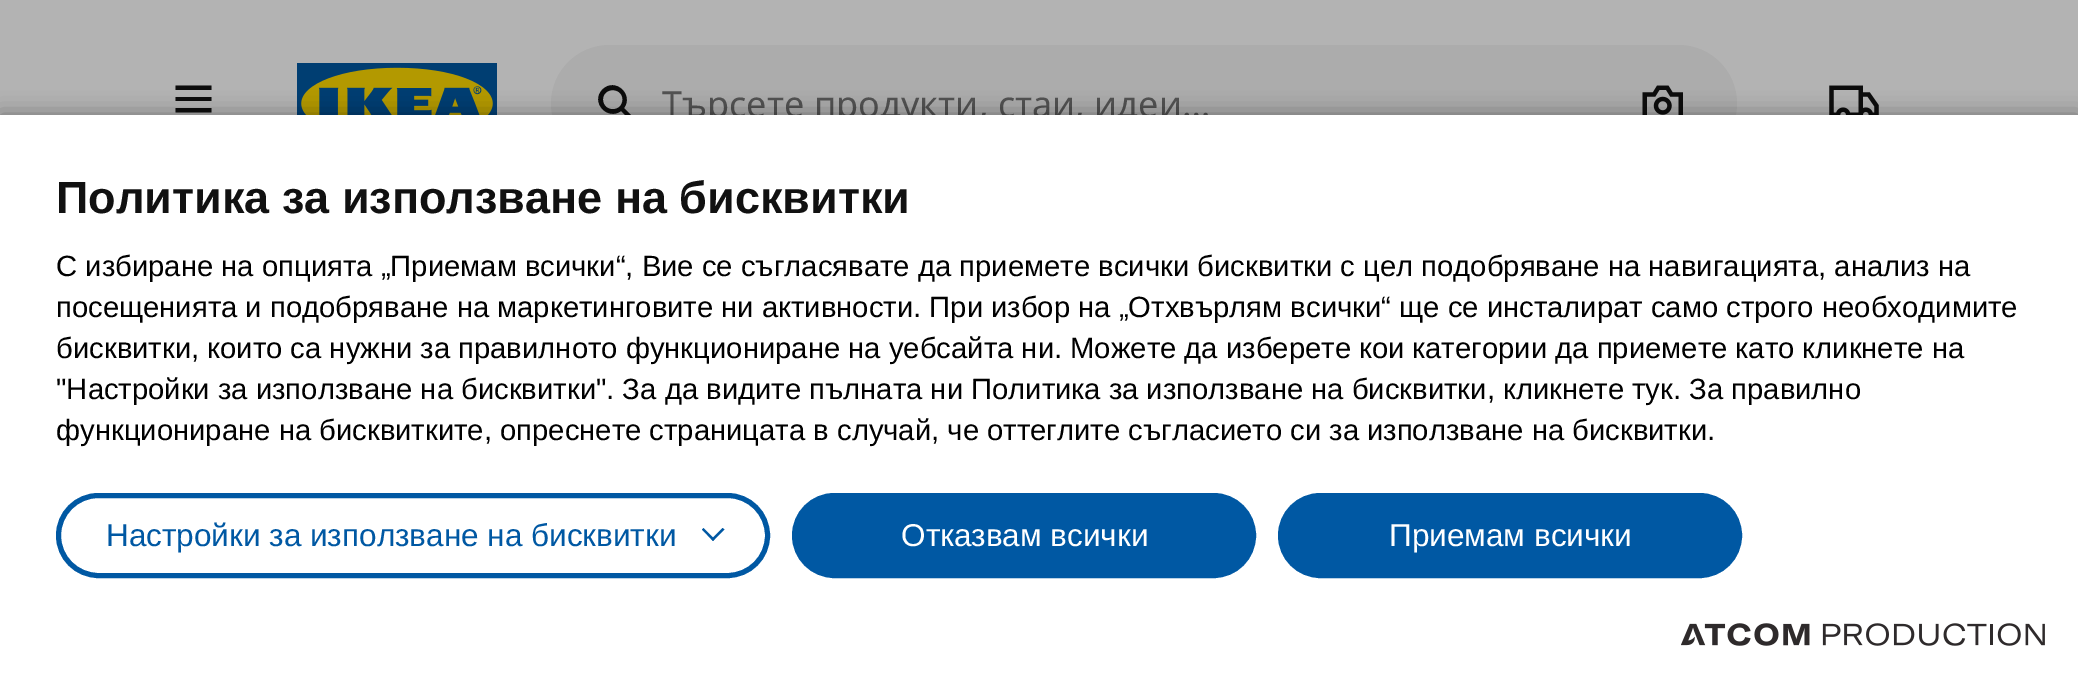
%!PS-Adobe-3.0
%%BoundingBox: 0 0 2078 683
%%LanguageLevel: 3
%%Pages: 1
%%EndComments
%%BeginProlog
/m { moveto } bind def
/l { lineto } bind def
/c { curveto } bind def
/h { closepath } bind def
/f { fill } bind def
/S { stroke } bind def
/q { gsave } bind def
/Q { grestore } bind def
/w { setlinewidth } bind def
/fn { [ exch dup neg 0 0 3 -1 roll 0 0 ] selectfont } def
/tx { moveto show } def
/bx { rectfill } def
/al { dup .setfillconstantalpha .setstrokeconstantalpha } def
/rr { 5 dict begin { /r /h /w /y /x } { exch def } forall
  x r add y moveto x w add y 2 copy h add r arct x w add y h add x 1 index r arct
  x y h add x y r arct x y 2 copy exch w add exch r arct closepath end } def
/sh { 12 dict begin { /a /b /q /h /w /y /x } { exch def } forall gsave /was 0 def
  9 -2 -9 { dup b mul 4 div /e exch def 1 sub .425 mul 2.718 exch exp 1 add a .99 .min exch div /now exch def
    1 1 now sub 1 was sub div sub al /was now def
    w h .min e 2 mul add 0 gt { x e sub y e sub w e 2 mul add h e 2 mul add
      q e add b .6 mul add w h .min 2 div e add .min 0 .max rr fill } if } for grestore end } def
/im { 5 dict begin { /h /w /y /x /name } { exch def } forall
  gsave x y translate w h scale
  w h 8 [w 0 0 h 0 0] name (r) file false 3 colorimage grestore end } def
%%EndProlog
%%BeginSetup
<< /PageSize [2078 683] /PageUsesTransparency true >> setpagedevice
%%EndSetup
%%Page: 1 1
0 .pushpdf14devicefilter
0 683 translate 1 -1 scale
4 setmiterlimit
0.702 setgray
0 0 2078 683 bx
0.047 setgray
211.5 90 m 175.5 90 l 175.5 85.5 l 211.5 85.5 l h 211.5 101 m 175.5 101 l 175.5 97 l 211.5 97 l h 211.5 112.5 m 175.5 112.5 l 175.5 108 l 211.5 108 l h eofill
(image0.raw) 297 63 200 52 im
0.675 setgray
551 45 1186 117 58.5 rr f
0.047 setgray
621 111 m 607.5 121 590 102 602.5 89.5 c 615 77 634 94.5 624 108 c 634.5 118.5 l 631.5 121.5 l h 622.5 99.5 m 622.5 112.5 603 112.5 603 99.5 c 603 87 622.5 87 622.5 99.5 c h eofill
/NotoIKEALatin-Regular 36 fn
0.322 setgray
(Търсете продукти, стаи, идеи…) 662 117 tx
(image1.raw) 1642 85 41 30 im
(image2.raw) 1829 85 50 30 im
0 setgray
0 115 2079 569 0 11 0.37 sh
1 setgray
0 115 2078 568 bx
/LiberationSans-Bold 45 fn
0.067 setgray
(Политика за използване на бисквитки) 56 213 tx
/LiberationSans-Regular 29.25 fn
0 setgray
(С избиране на опцията „Приемам всички“, Вие се съгласявате да приемете всички бисквитки с цел подобряване на навигацията, анализ на) 56 276 tx
(посещенията и подобряване на маркетинговите ни активности. При избор на „Отхвърлям всички“ ще се инсталират само строго необходимитe) 56 317 tx
(бисквитки, които са нужни за правилното функциониране на уебсайта ни. Можете да изберете кои категории да приемете като кликнете на) 56 358 tx
("Настройки за използване на бисквитки". За да видите пълната ни Политика за използване на бисквитки, кликнете тук. За правилно) 56 399 tx
(функциониране на бисквитките, опреснете страницата в случай, че оттеглите съгласието си за използване на бисквитки.) 56 440 tx
0 0.345 0.639 setrgbcolor
5 w
58.5 495.5 709 80 40 rr S
/LiberationSans-Regular 31.5 fn
(Настройки за използване на бисквитки) 106 546 tx
722.5 528 m 724.5 529.5 l 713 541 l 711.5 539 l h f
703.5 528 m 714.5 539 l 713 541 l 702 529.5 l h f
794.5 495.5 459 80 40 rr q f Q
S
1 setgray
(Отказвам всички) 901 546 tx
0 0.345 0.639 setrgbcolor
1280.5 495.5 459 80 40 rr q f Q
S
1 setgray
(Приемам всички) 1389 546 tx
(image3.raw) 1681 623 364 23 im
.poppdf14devicefilter showpage
%%EOF
